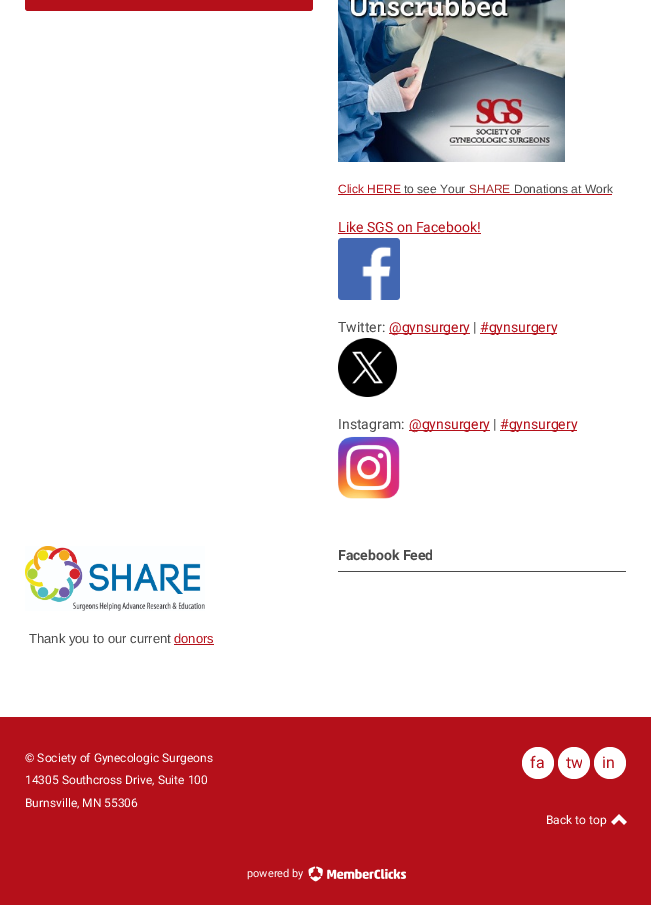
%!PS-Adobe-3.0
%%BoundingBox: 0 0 651 905
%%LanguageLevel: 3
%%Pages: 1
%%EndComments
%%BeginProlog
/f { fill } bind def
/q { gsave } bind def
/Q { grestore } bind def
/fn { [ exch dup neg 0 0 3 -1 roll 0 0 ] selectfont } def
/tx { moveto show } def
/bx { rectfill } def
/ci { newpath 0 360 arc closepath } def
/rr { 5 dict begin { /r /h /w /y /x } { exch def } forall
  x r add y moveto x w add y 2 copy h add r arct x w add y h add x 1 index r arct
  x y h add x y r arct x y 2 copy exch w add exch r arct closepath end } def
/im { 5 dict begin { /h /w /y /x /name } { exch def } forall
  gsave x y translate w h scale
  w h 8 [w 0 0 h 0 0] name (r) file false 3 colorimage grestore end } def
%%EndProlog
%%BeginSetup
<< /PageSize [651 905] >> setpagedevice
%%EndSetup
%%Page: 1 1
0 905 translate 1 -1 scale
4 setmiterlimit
1 setgray
0 0 651 905 bx
0.71 0.063 0.102 setrgbcolor
25 -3 288 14 3 rr f
(image0.raw) 338 0 227 162 im
/LiberationSans-Regular 12 fn
(Click HERE) 338 193 tx
338 194 274 1 bx
0.29 setgray
(to see Your) 404 193 tx
0.647 0.165 0.165 setrgbcolor
(SHARE) 469 193 tx
0.29 setgray
(Donations at Work) 514 193 tx
/Roboto-Regular 14 fn
0.71 0.063 0.102 setrgbcolor
(Like SGS on Facebook!) 338 232 tx
338 233 143 1 bx
(image1.raw) 338 238 62 62 im
0.29 setgray
(Twitter:) 338 332 tx
0.71 0.063 0.102 setrgbcolor
389 333 81 1 bx
(@gynsurgery) 389 332 tx
0.29 setgray
(|) 473 332 tx
0.71 0.063 0.102 setrgbcolor
480 333 77 1 bx
(#gynsurgery) 480 332 tx
(image2.raw) 338 338 59 59 im
0.29 setgray
(Instagram:) 338 429 tx
0.71 0.063 0.102 setrgbcolor
409 430 81 1 bx
(@gynsurgery) 409 429 tx
0.29 setgray
(|) 493 429 tx
0.71 0.063 0.102 setrgbcolor
500 430 77 1 bx
(#gynsurgery) 500 429 tx
(image3.raw) 338 436 62 63 im
0.29 setgray
338 571 288 1 bx
/Roboto-Bold 14 fn
(Facebook Feed) 338 560 tx
(image4.raw) 25 546 180 65 im
/LiberationSans-Regular 13 fn
(Thank you to our current) 29 643 tx
0.71 0.063 0.102 setrgbcolor
(donors) 174 643 tx
174 644 40 1 bx
0 717 651 188 bx
/Roboto-Regular 12 fn
1 setgray
(© Society of Gynecologic Surgeons) 25 762 tx
(14305 Southcross Drive, Suite 100) 25 784 tx
(Burnsville, MN 55306) 25 807 tx
538 763 16 ci f
/Roboto-Regular 16 fn
0.71 0.063 0.102 setrgbcolor
(fa) 530 768 tx
1 setgray
574 763 16 ci f
q
566 755 16 16 rectclip
0.71 0.063 0.102 setrgbcolor
(tw) 566 768 tx
Q
610 763 16 ci f
0.71 0.063 0.102 setrgbcolor
(in) 602 768 tx
/Roboto-Regular 12 fn
1 setgray
(Back to top) 546 824 tx
(image5.raw) 611 814 16 11 im
/Roboto-Regular 11 fn
(powered by) 247 877 tx
(image6.raw) 308 866 15 16 im
(image7.raw) 327 868 79 11 im
showpage
%%EOF
